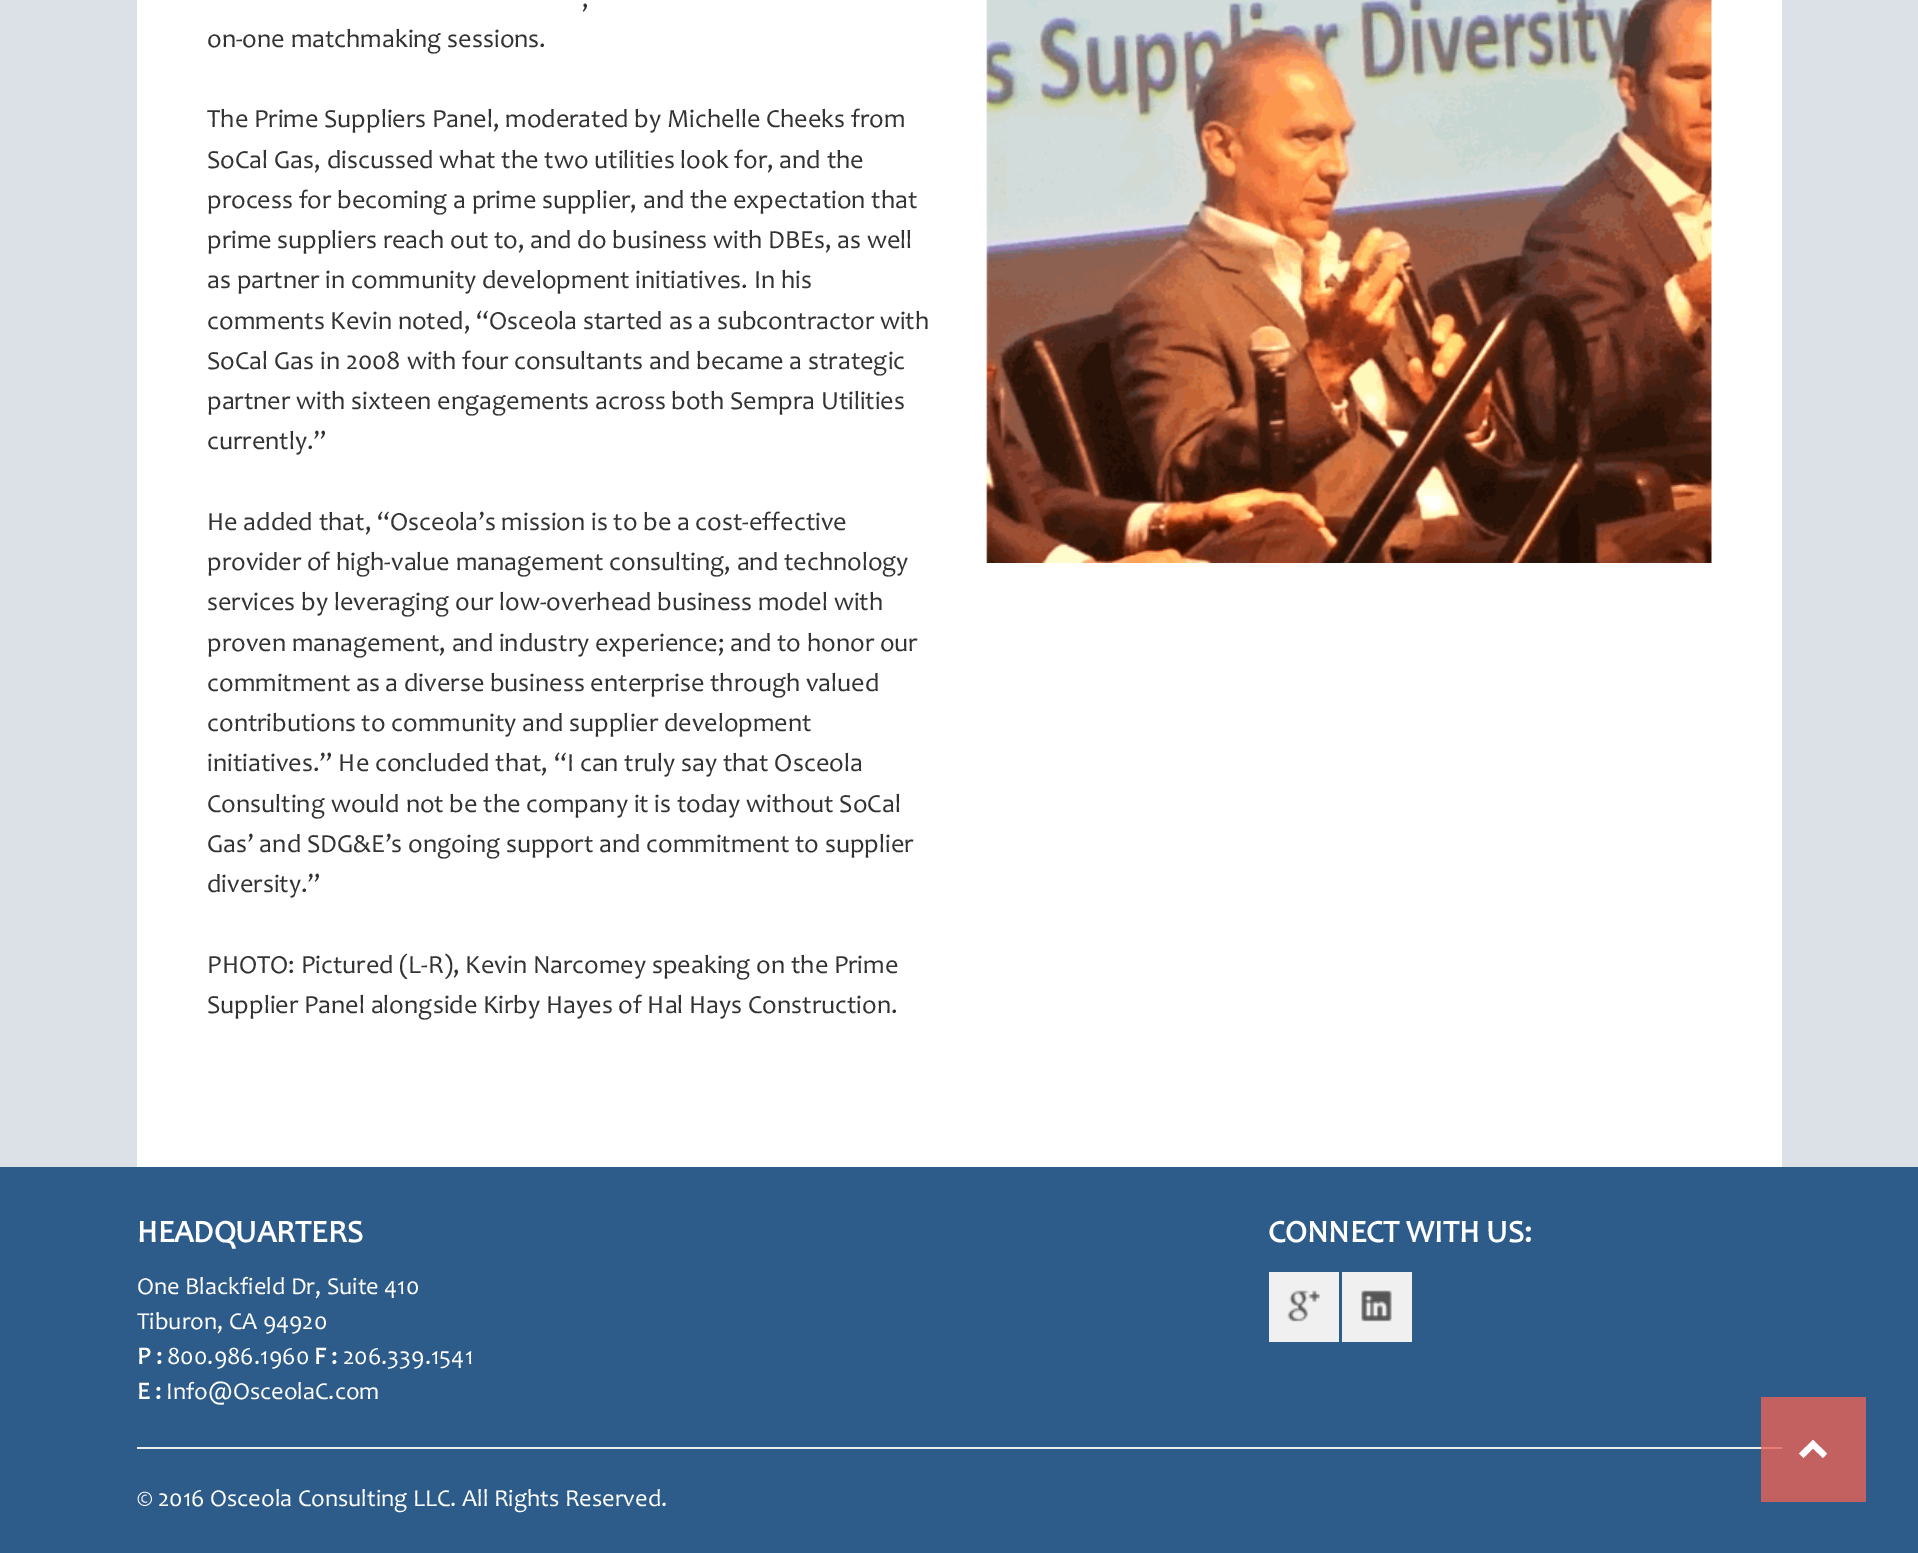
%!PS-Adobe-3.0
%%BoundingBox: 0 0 1918 1553
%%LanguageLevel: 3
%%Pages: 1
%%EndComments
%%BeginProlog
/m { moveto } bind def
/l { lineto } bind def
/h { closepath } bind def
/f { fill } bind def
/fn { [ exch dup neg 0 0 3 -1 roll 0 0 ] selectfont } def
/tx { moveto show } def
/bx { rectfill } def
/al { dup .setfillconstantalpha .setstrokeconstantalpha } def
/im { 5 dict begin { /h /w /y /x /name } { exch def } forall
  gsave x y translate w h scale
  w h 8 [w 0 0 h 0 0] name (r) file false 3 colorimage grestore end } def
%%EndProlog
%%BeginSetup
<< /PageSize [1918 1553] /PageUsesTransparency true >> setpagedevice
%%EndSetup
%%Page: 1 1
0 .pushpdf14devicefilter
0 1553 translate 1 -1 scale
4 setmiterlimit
0.859 0.882 0.906 setrgbcolor
0 0 1918 1553 bx
1 setgray
137 0 1645 1167 bx
/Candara-Regular 26.25 fn
0.2 setgray
(,) 582 7 tx
(on-one matchmaking sessions.) 207 47 tx
(The Prime Suppliers Panel, moderated by Michelle Cheeks from) 207 127 tx
(SoCal Gas, discussed what the two utilities look for, and the) 207 168 tx
(process for becoming a prime supplier, and the expectation that) 207 208 tx
(prime suppliers reach out to, and do business with DBEs, as well) 207 248 tx
(as partner in community development initiatives. In his) 207 288 tx
(comments Kevin noted, “Osceola started as a subcontractor with) 207 329 tx
(SoCal Gas in 2008 with four consultants and became a strategic) 207 369 tx
(partner with sixteen engagements across both Sempra Utilities) 207 409 tx
(currently.”) 207 449 tx
(He added that, “Osceola’s mission is to be a cost-effective) 207 530 tx
(provider of high-value management consulting, and technology) 207 570 tx
(services by leveraging our low-overhead business model with) 207 610 tx
(proven management, and industry experience; and to honor our) 207 651 tx
(commitment as a diverse business enterprise through valued) 207 691 tx
(contributions to community and supplier development) 207 731 tx
(initiatives.” He concluded that, “I can truly say that Osceola) 207 771 tx
(Consulting would not be the company it is today without SoCal) 207 812 tx
(Gas’ and SDG&E’s ongoing support and commitment to supplier) 207 852 tx
(diversity.”) 207 892 tx
(PHOTO: Pictured \(L-R\), Kevin Narcomey speaking on the Prime) 207 973 tx
(Supplier Panel alongside Kirby Hayes of Hal Hays Construction.) 207 1013 tx
(image0.raw) 986 0 726 563 im
0.176 0.361 0.541 setrgbcolor
0 1167 1918 386 bx
/Candara-Bold 31.5 fn
1 setgray
(HEADQUARTERS) 137 1242 tx
/Candara-Regular 24.5 fn
(One Blackfield Dr, Suite 410) 137 1294 tx
(Tiburon, CA 94920) 137 1329 tx
/Candara-Bold 24.5 fn
(P :) 137 1364 tx
/Candara-Regular 24.5 fn
(800.986.1960) 167 1364 tx
/Candara-Bold 24.5 fn
(F :) 314 1364 tx
/Candara-Regular 24.5 fn
(206.339.1541) 343 1364 tx
/Candara-Bold 24.5 fn
(E :) 137 1399 tx
/Candara-Regular 24.5 fn
(Info@OsceolaC.com) 166 1399 tx
/Candara-Bold 31.5 fn
(CONNECT WITH US:) 1268 1242 tx
0.941 setgray
1269 1272 70 70 bx
(image1.raw) 1287 1290 33 32 im
1342 1272 70 70 bx
(image2.raw) 1361 1290 31 32 im
0.933 setgray
137 1447 1645 2 bx
/Candara-Regular 24.5 fn
1 setgray
(© 2016 Osceola Consulting LLC. All Rights Reserved.) 137 1506 tx
0.8 al
0.91 0.384 0.337 setrgbcolor
1761 1397 105 105 bx
1 al
1 setgray
1813 1440 m 1827 1453.5 l 1823 1458 l 1813 1448.5 l 1803.5 1458 l 1799 1453.5 l h f
.poppdf14devicefilter showpage
%%EOF
